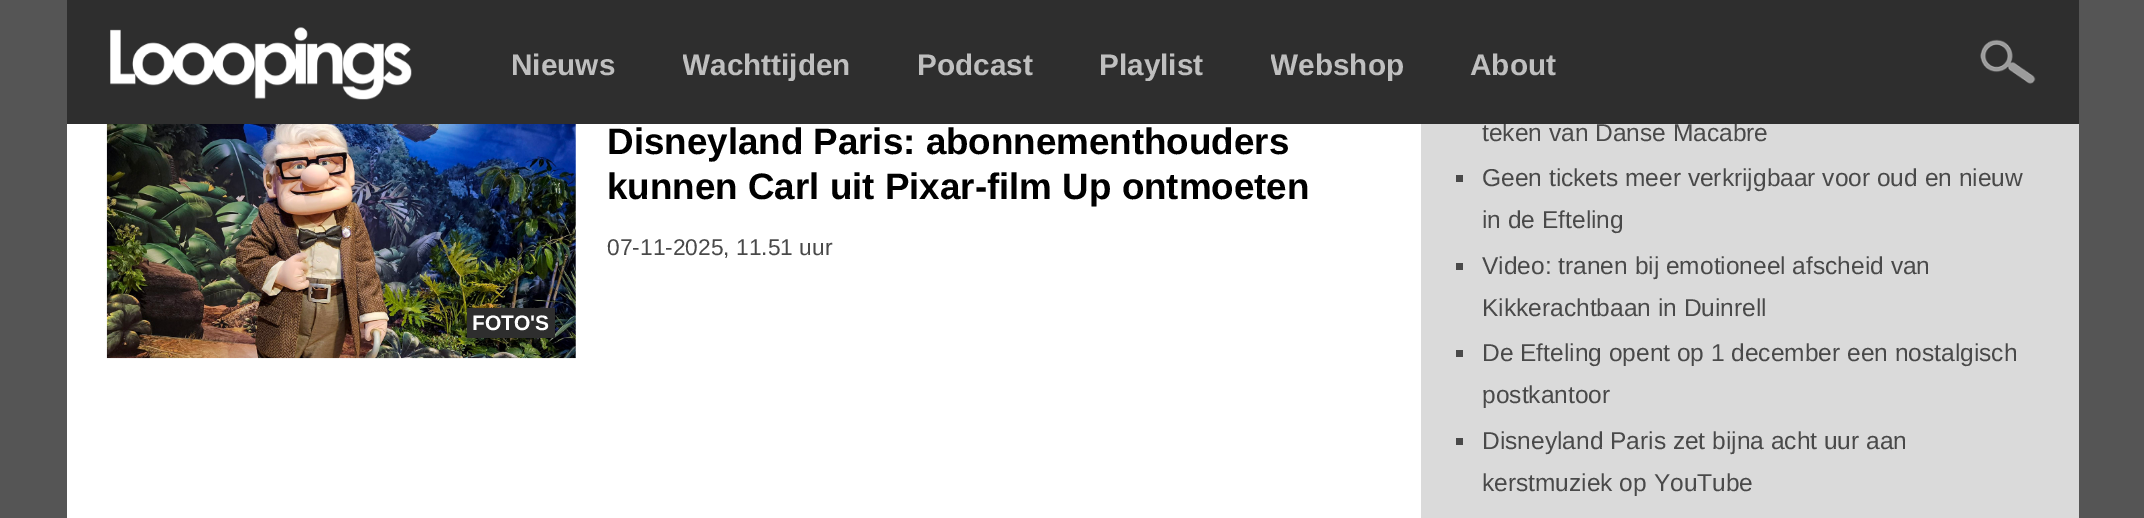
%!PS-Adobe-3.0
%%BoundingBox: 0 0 2144 518
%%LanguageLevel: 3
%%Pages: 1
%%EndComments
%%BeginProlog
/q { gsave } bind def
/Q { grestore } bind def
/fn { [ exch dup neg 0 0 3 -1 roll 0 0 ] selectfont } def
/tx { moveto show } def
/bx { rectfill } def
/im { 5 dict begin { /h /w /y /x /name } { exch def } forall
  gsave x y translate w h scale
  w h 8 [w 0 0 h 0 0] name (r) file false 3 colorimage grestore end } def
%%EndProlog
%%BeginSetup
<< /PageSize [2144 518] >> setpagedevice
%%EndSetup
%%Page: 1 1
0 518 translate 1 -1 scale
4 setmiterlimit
0.333 setgray
0 0 2144 518 bx
0.855 setgray
1421 124 658 394 bx
/LiberationSans-Regular 24.5 fn
0.286 setgray
(teken van Danse Macabre) 1482 141 tx
0.18 setgray
67 0 2012 124 bx
(image0.raw) 110 27 302 73 im
/LiberationSans-Bold 29.75 fn
0.749 setgray
(Nieuws) 511 75 tx
q
683 0 168 81 rectclip
(Wachttijden) 682 75 tx
Q
(Podcast) 917 75 tx
q
1099 0 105 81 rectclip
(Playlist) 1099 75 tx
Q
q
1271 0 133 81 rectclip
(Webshop) 1270 75 tx
Q
(About) 1470 75 tx
(image1.raw) 1980 39 56 45 im
1 setgray
67 124 1354 394 bx
/LiberationSans-Bold 36.75 fn
0 setgray
(Disneyland Paris: abonnementhouders) 607 154 tx
(kunnen Carl uit Pixar-film Up ontmoeten) 607 199 tx
/LiberationSans-Regular 22.75 fn
0.286 setgray
(07-11-2025, 11.51 uur) 607 255 tx
(image2.raw) 106 124 470 235 im
0.18 setgray
467 308 88 30 bx
/LiberationSans-Bold 21 fn
1 setgray
(FOTO'S) 472 330 tx
0.286 setgray
1456 175 7 7 bx
/LiberationSans-Regular 24.5 fn
(Geen tickets meer verkrijgbaar voor oud en nieuw) 1482 186 tx
(in de Efteling) 1482 228 tx
1456 263 7 7 bx
(Video: tranen bij emotioneel afscheid van) 1482 274 tx
(Kikkerachtbaan in Duinrell) 1482 316 tx
1456 350 7 7 bx
(De Efteling opent op 1 december een nostalgisch) 1482 361 tx
(postkantoor) 1482 403 tx
1456 438 7 7 bx
(Disneyland Paris zet bijna acht uur aan) 1482 449 tx
(kerstmuziek op YouTube) 1482 491 tx
showpage
%%EOF
